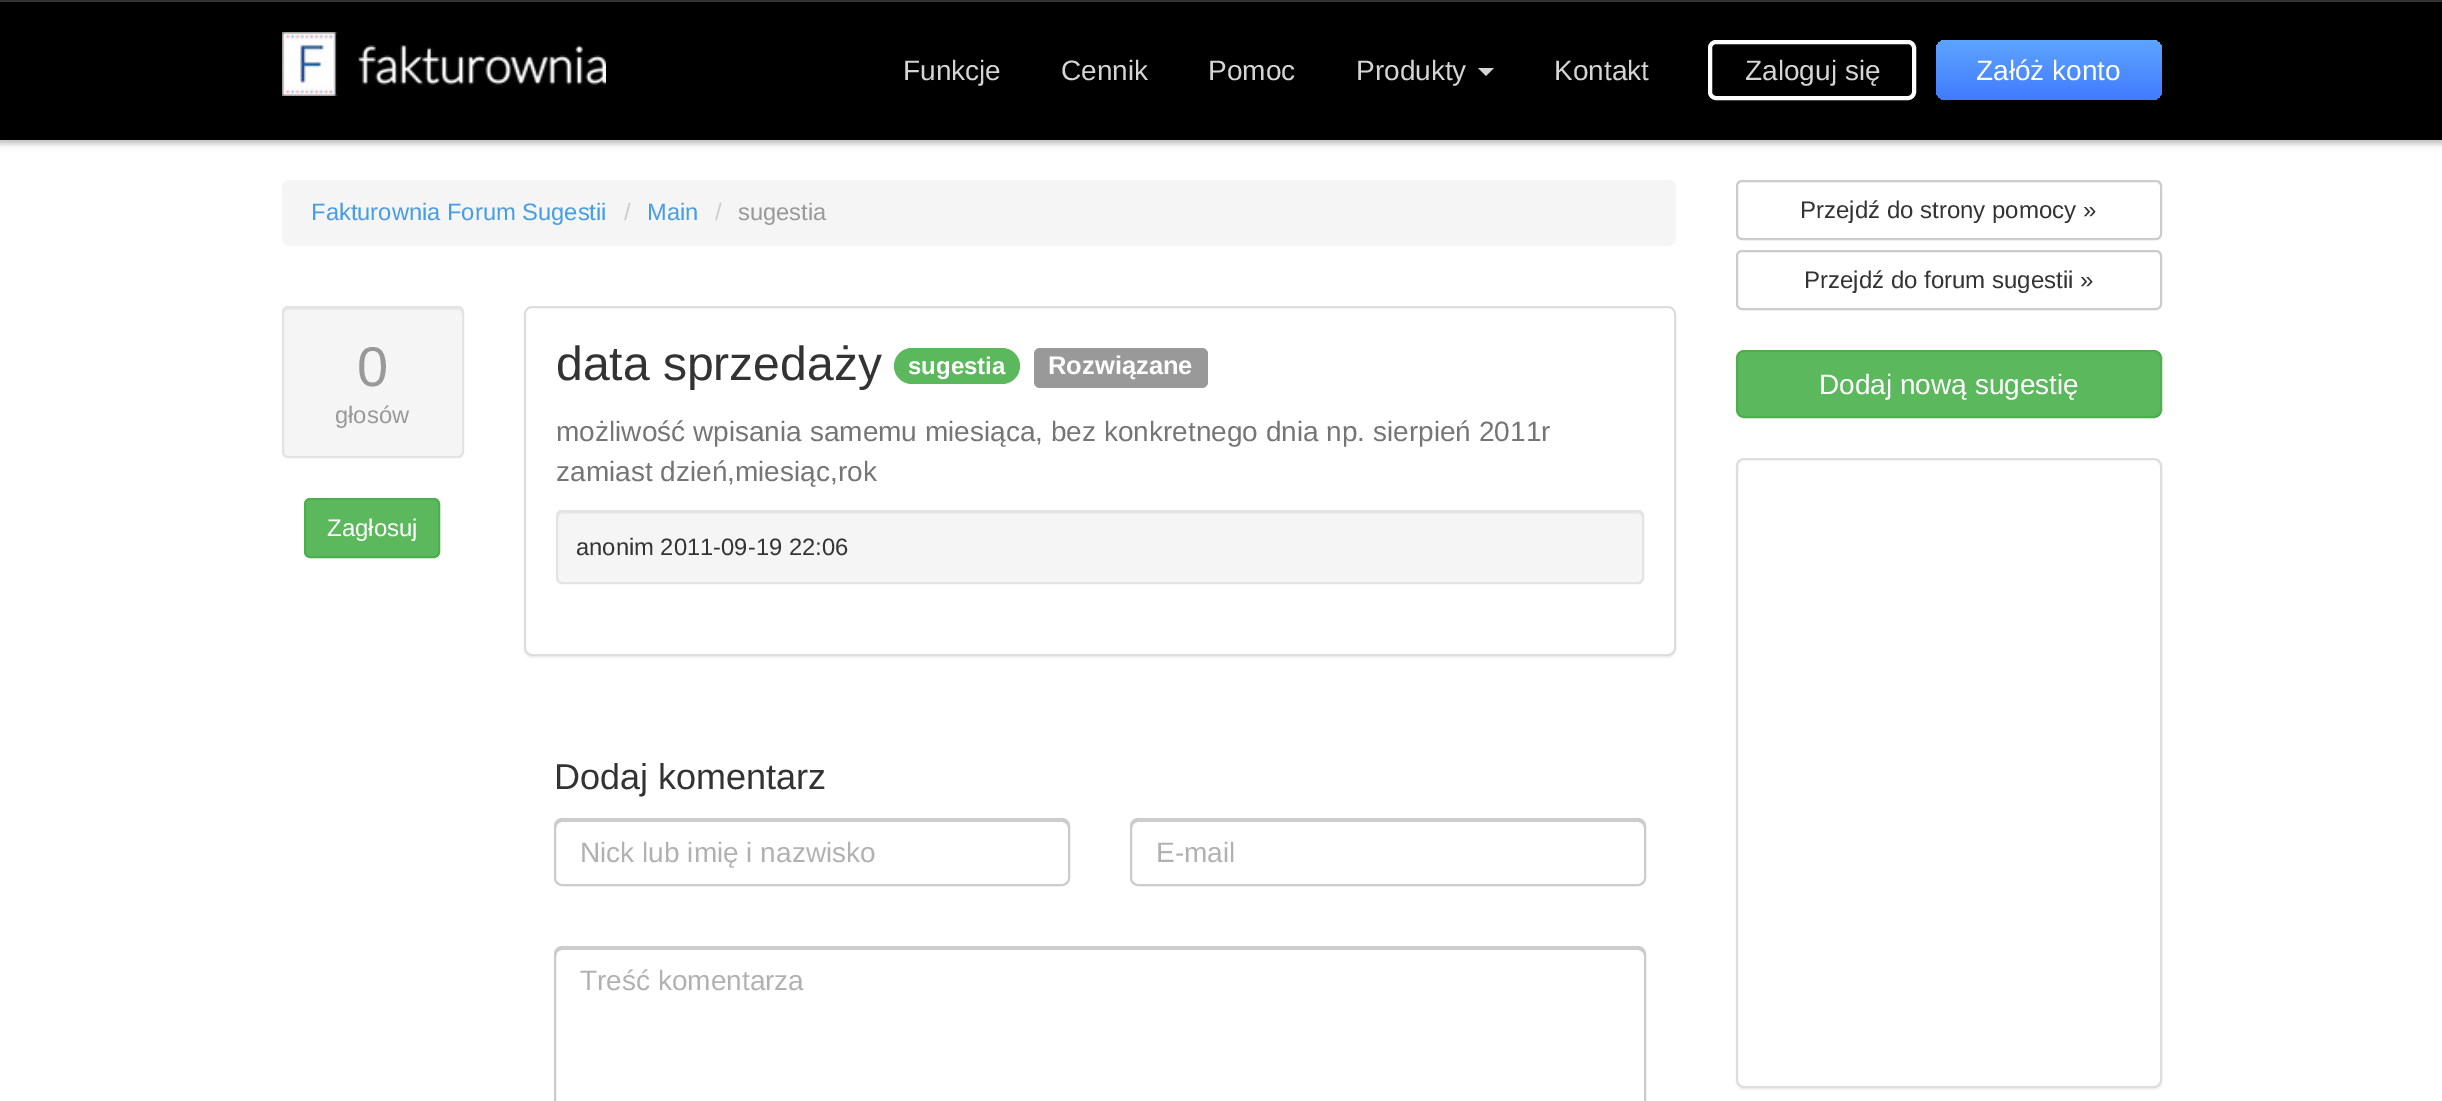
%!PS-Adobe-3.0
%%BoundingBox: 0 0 2442 1101
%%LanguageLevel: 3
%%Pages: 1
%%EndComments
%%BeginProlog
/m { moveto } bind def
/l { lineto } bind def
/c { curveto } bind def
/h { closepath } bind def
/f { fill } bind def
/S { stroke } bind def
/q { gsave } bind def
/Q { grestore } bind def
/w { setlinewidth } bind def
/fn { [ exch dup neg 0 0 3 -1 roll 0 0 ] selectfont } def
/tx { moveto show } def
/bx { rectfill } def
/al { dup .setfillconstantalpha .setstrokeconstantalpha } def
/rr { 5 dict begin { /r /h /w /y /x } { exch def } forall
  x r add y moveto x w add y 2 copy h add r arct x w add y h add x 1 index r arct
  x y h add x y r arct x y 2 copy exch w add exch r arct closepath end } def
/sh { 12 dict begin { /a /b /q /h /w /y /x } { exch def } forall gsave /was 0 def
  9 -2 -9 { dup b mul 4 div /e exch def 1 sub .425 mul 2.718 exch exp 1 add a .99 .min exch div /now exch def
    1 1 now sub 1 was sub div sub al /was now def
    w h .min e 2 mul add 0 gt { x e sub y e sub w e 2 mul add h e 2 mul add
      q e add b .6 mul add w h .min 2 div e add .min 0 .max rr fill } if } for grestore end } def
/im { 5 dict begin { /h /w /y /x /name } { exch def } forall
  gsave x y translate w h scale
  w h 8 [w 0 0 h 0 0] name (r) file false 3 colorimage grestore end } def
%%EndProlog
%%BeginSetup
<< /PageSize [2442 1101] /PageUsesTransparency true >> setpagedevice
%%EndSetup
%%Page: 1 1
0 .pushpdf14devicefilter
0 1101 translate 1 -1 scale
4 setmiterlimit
1 setgray
0 0 2442 1101 bx
0.18 setgray
-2 0 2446 144 0 3 0.3 sh
0 setgray
0 2 2442 138 bx
0.2 setgray
0 0 2442 2 bx
(image0.raw) 282 32 324 64 im
/LiberationSans-Regular 28 fn
0.835 setgray
(Funkcje) 903 80 tx
(Cennik) 1061 80 tx
(Pomoc) 1208 80 tx
(Produkty) 1356 80 tx
1478 68 m 1494 68 l 1486 76 l h f
(Kontakt) 1554 80 tx
1 setgray
4 w
1710 42 204 56 6 rr S
0.835 setgray
(Zaloguj się) 1745 80 tx
q 1936 40 226 60 10 rr clip newpath
<< /ShadingType 2 /ColorSpace /DeviceRGB /Coords [2049 40 2049 100] /Extend [true true] /Function << /FunctionType 2 /Domain [0 1] /C0 [0.365 0.643 1] /C1 [0.255 0.482 1] /N 1 >> >> shfill Q
1 setgray
(Załóż konto) 1976 80 tx
0.961 setgray
282 180 1394 66 8 rr f
/LiberationSans-Regular 23.75 fn
0.271 0.612 0.906 setrgbcolor
(Fakturownia Forum Sugestii) 311 220 tx
0.8 setgray
(/) 624 220 tx
0.271 0.612 0.906 setrgbcolor
(Main) 647 220 tx
0.8 setgray
(/) 715 220 tx
0.6 setgray
(sugestia) 738 220 tx
0.961 setgray
282 306 182 152 6 rr f
0.914 setgray
288 310 m 458 310 l 460 310 462 312 462 314 c 462 312 l 462 310 460 308 458 308 c 288 308 l 286 308 284 310 284 312 c 284 314 l 284 312 286 310 288 310 c h f
0.89 setgray
2 w
283 307 180 150 5 rr S
/LiberationSans-Regular 56 fn
0.6 setgray
(0) 357 386 tx
/LiberationSans-Regular 23.75 fn
(głosów) 335 423 tx
0.361 0.722 0.361 setrgbcolor
305 499 134 58 5 rr q f Q
0.298 0.682 0.298 setrgbcolor
S
/LiberationSans-Regular 24 fn
1 setgray
(Zagłosuj) 327 536 tx
0 setgray
524 308 1152 350 8 1 0.05 sh
1 setgray
525 307 1150 348 7 rr q f Q
0.867 setgray
S
/LiberationSans-Regular 48 fn
0.2 setgray
(data sprzedaży) 556 380 tx
0.361 0.722 0.361 setrgbcolor
894 348 126 36 18 rr f
/LiberationSans-Bold 24 fn
1 setgray
(sugestia) 908 374 tx
0.6 setgray
1034 348 174 40 6 rr f
/LiberationSans-Bold 25.5 fn
1 setgray
(Rozwiązane) 1048 374 tx
/LiberationSans-Regular 28 fn
0.459 setgray
(możliwość wpisania samemu miesiąca, bez konkretnego dnia np. sierpień 2011r) 556 441 tx
(zamiast dzień,miesiąc,rok) 556 481 tx
0.961 setgray
556 510 1088 74 6 rr f
0.914 setgray
562 514 m 1638 514 l 1640 514 1642 516 1642 518 c 1642 516 l 1642 514 1640 512 1638 512 c 562 512 l 560 512 558 514 558 516 c 558 518 l 558 516 560 514 562 514 c h f
0.89 setgray
557 511 1086 72 5 rr S
/LiberationSans-Regular 23.75 fn
0.2 setgray
(anonim 2011-09-19 22:06) 576 555 tx
/LiberationSans-Regular 36 fn
(Dodaj komentarz) 554 789 tx
0.8 setgray
562 822 m 1062 822 l 1065 822 1068 825 1068 828 c 1068 824 1067 820 1062 820 c 562 820 l 557 820 556 824 556 828 c 556 825 559 822 562 822 c h f
555 819 514 66 7 rr S
/LiberationSans-Regular 28 fn
0.694 setgray
(Nick lub imię i nazwisko) 580 862 tx
0.8 setgray
1138 822 m 1638 822 l 1641 822 1644 825 1644 828 c 1644 824 1643 820 1638 820 c 1138 820 l 1133 820 1132 824 1132 828 c 1132 825 1135 822 1138 822 c h f
1131 819 514 66 7 rr S
0.694 setgray
(E-mail) 1156 862 tx
0.8 setgray
562 950 m 1638 950 l 1641 950 1644 953 1644 956 c 1644 954 l 1644 951 1641 948 1638 948 c 562 948 l 559 948 556 951 556 954 c 556 956 l 556 953 559 950 562 950 c h f
555 947 1090 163 7 rr S
0.694 setgray
(Treść komentarza) 580 990 tx
0.8 setgray
1737 181 424 58 5 rr S
/LiberationSans-Regular 24 fn
0.2 setgray
(Przejdź do strony pomocy ») 1800 218 tx
0.8 setgray
1737 251 424 58 5 rr S
0.2 setgray
(Przejdź do forum sugestii ») 1804 288 tx
0.361 0.722 0.361 setrgbcolor
1737 351 424 66 7 rr q f Q
0.298 0.682 0.298 setrgbcolor
S
/LiberationSans-Regular 28 fn
1 setgray
(Dodaj nową sugestię) 1819 394 tx
0 setgray
1736 460 426 630 8 1 0.05 sh
1 setgray
1737 459 424 628 7 rr q f Q
0.867 setgray
S
.poppdf14devicefilter showpage
%%EOF
